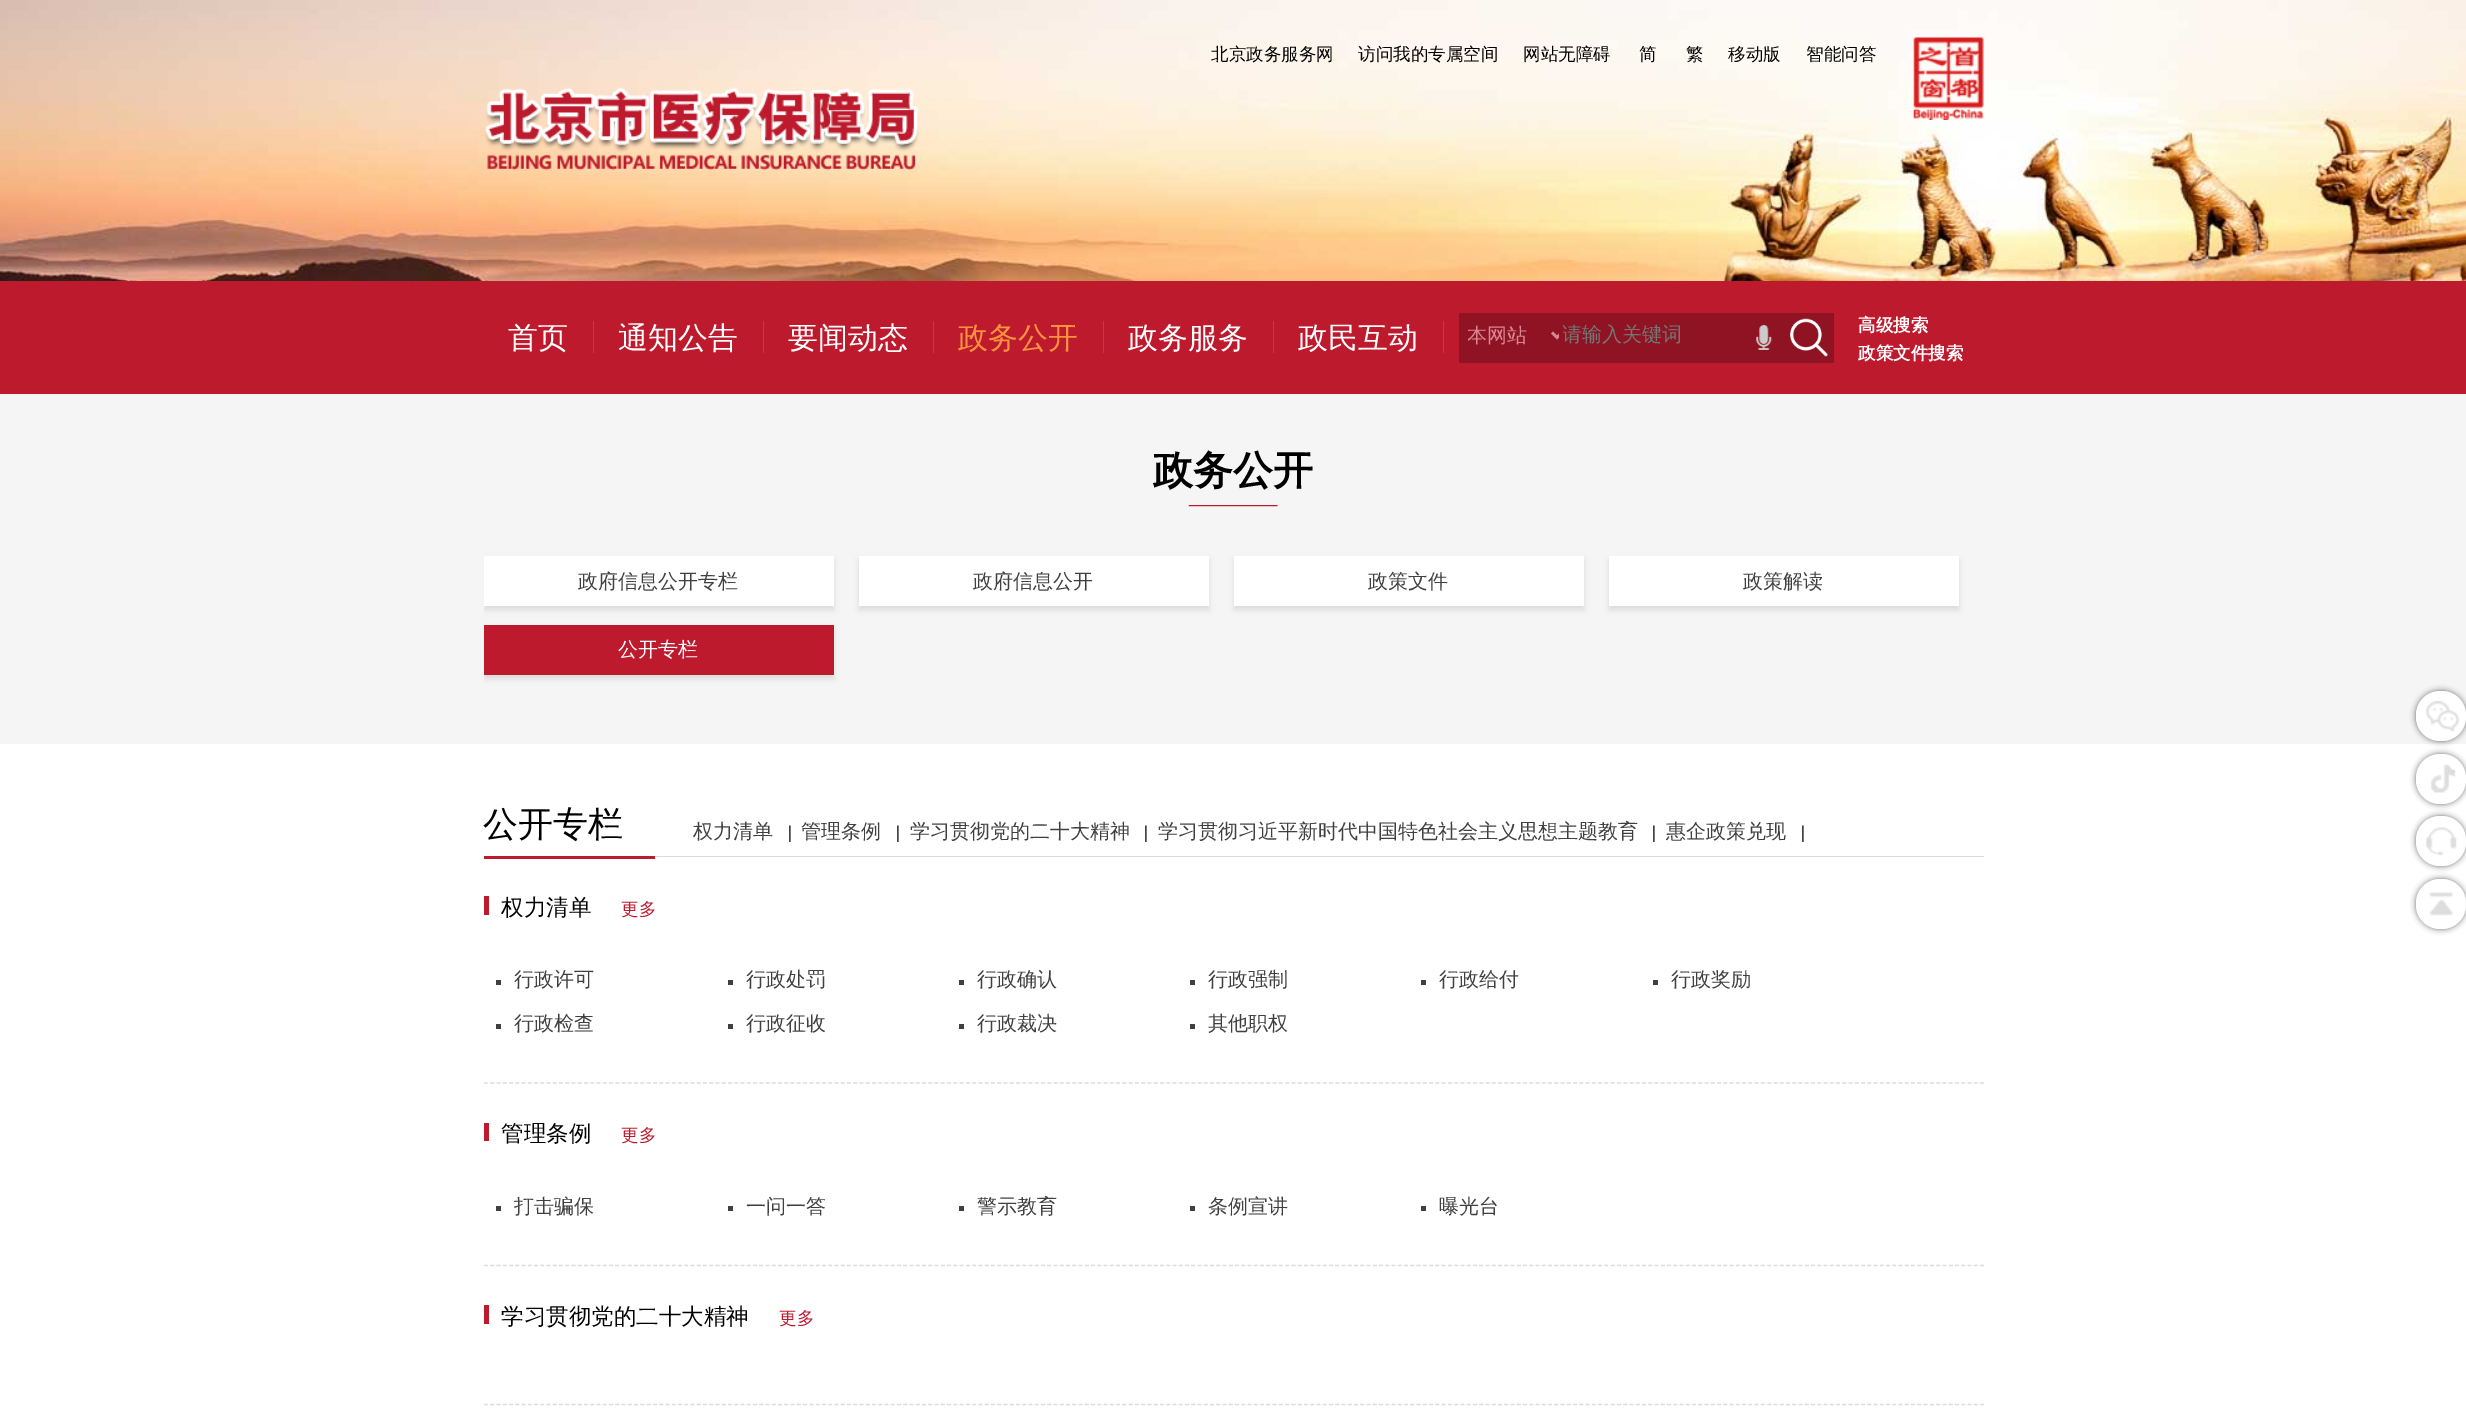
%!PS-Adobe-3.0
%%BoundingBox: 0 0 2466 1410
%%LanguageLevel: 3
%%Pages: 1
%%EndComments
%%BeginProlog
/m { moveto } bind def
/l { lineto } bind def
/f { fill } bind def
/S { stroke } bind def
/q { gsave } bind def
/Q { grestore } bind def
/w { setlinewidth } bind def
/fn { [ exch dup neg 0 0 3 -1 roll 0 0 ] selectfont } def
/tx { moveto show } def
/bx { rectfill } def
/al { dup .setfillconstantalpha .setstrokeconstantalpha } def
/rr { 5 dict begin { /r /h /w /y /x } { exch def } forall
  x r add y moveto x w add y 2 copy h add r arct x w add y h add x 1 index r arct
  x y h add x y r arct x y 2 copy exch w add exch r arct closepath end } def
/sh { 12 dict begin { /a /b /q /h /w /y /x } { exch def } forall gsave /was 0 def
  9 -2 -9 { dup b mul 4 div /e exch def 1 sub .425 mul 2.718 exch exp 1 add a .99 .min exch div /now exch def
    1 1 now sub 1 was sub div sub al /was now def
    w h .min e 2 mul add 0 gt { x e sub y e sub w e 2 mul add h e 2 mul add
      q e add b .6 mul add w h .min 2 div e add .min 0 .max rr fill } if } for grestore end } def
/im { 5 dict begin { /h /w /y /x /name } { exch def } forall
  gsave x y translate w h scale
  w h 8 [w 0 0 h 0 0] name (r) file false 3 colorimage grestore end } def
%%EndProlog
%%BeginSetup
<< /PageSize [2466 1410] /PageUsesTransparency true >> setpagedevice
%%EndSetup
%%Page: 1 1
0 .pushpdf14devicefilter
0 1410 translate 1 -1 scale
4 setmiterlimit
1 setgray
0 0 2466 1410 bx
(image0.raw) 0 0 2466 281 im
/WenQuanYiZenHei-Medium 17.5 fn
0 setgray
(北京政务服务网) 1211 60 tx
(访问我的专属空间) 1358 60 tx
(网站无障碍) 1523 60 tx
(简) 1639 60 tx
(繁) 1686 60 tx
(移动版) 1728 60 tx
(智能问答) 1806 60 tx
(image1.raw) 1913 37 71 83 im
(image2.raw) 485 87 434 84 im
0.741 0.102 0.176 setrgbcolor
0 281 2466 113 bx
/WenQuanYiZenHei-Medium 30 fn
1 setgray
(首页) 508 348 tx
0.871 0.173 0.255 setrgbcolor
593 321 1 32 bx
1 setgray
(通知公告) 618 348 tx
0.871 0.173 0.255 setrgbcolor
763 321 1 32 bx
1 setgray
(要闻动态) 788 348 tx
0.871 0.173 0.255 setrgbcolor
933 321 1 32 bx
0.988 0.573 0.243 setrgbcolor
(政务公开) 958 348 tx
0.871 0.173 0.255 setrgbcolor
1103 321 1 32 bx
1 setgray
(政务服务) 1128 348 tx
0.871 0.173 0.255 setrgbcolor
1273 321 1 32 bx
1 setgray
(政民互动) 1298 348 tx
0.871 0.173 0.255 setrgbcolor
1443 321 1 32 bx
0.561 0.075 0.133 setrgbcolor
1459 313 375 50 bx
0.847 0.533 0.569 setrgbcolor
2.5 w
1552 332.5 m 1557 337.5 l 1562 332.5 l S
q
1468 324 80 24 rectclip
/WenQuanYiZenHei-Medium 20 fn
(本网站) 1467 342 tx
Q
0.561 0.075 0.133 setrgbcolor
1559 331 4 7 bx
q
1563 323 258 26 rectclip
/WenQuanYiZenHei-Medium 20 fn
0.459 setgray
(请输入关键词) 1562 341 tx
Q
(image3.raw) 1756 325 16 25 im
(image4.raw) 1790 318 38 39 im
/WenQuanYiZenHei-Bold 17.5 fn
1 setgray
(高级搜索) 1858 331 tx
(政策文件搜索) 1858 359 tx
0.961 setgray
0 394 2466 350 bx
(image5.raw) 1188 505 90 2 im
/WenQuanYiZenHei-Bold 40 fn
0 setgray
(政务公开) 1153 484 tx
q
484 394 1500 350 rectclip
484 560 350 50 0 3 0.1 sh
Q
1 setgray
484 556 350 50 bx
/WenQuanYiZenHei-Medium 20 fn
0.251 setgray
(政府信息公开专栏) 578 588 tx
0 setgray
859 560 350 50 0 3 0.1 sh
1 setgray
859 556 350 50 bx
0.251 setgray
(政府信息公开) 973 588 tx
0 setgray
1234 560 350 50 0 3 0.1 sh
1 setgray
1234 556 350 50 bx
0.251 setgray
(政策文件) 1368 588 tx
0 setgray
1609 560 350 50 0 3 0.1 sh
1 setgray
1609 556 350 50 bx
0.251 setgray
(政策解读) 1743 588 tx
q
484 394 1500 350 rectclip
0 setgray
484 629 350 50 0 3 0.1 sh
Q
0.741 0.102 0.176 setrgbcolor
484 625 350 50 bx
1 setgray
(公开专栏) 618 656 tx
0.863 setgray
655 856 1329 1 bx
0.741 0.102 0.176 setrgbcolor
484 856 171 3 bx
/WenQuanYiZenHei-Medium 35 fn
0 setgray
(公开专栏) 483 836 tx
/WenQuanYiZenHei-Medium 20 fn
0.251 setgray
(权力清单) 693 838 tx
/LiberationSerif-Bold 18 fn
0 setgray
(|) 788 838 tx
/WenQuanYiZenHei-Medium 20 fn
0.251 setgray
(管理条例) 801 838 tx
/LiberationSerif-Bold 18 fn
0 setgray
(|) 896 838 tx
/WenQuanYiZenHei-Medium 20 fn
0.251 setgray
(学习贯彻党的二十大精神) 910 838 tx
/LiberationSerif-Bold 18 fn
0 setgray
(|) 1144 838 tx
/WenQuanYiZenHei-Medium 20 fn
0.251 setgray
(学习贯彻习近平新时代中国特色社会主义思想主题教育) 1158 838 tx
/LiberationSerif-Bold 18 fn
0 setgray
(|) 1652 838 tx
/WenQuanYiZenHei-Medium 20 fn
0.251 setgray
(惠企政策兑现) 1666 838 tx
/LiberationSerif-Bold 18 fn
0 setgray
(|) 1801 838 tx
0.863 setgray
1.2 w
[3.75 2.51] 0 setdash
484 1083 m 1984 1083 l S
0.741 0.102 0.176 setrgbcolor
484 896 5 19 bx
/WenQuanYiZenHei-Medium 22.5 fn
0 setgray
(权力清单) 501 915 tx
/WenQuanYiZenHei-Medium 17.5 fn
0.741 0.102 0.176 setrgbcolor
(更多) 621 915 tx
0.251 setgray
496 980 5 5 bx
/WenQuanYiZenHei-Medium 20 fn
(行政许可) 514 986 tx
728 980 5 5 bx
(行政处罚) 746 986 tx
959 980 5 5 bx
(行政确认) 977 986 tx
1190 980 5 5 bx
(行政强制) 1208 986 tx
1421 980 5 5 bx
(行政给付) 1439 986 tx
1653 980 5 5 bx
(行政奖励) 1671 986 tx
496 1024 5 5 bx
(行政检查) 514 1030 tx
728 1024 5 5 bx
(行政征收) 746 1030 tx
959 1024 5 5 bx
(行政裁决) 977 1030 tx
1190 1024 5 5 bx
(其他职权) 1208 1030 tx
0.863 setgray
484 1265.5 m 1984 1265.5 l S
0.741 0.102 0.176 setrgbcolor
484 1123 5 18 bx
/WenQuanYiZenHei-Medium 22.5 fn
0 setgray
(管理条例) 501 1141 tx
/WenQuanYiZenHei-Medium 17.5 fn
0.741 0.102 0.176 setrgbcolor
(更多) 621 1141 tx
0.251 setgray
496 1206 5 5 bx
/WenQuanYiZenHei-Medium 20 fn
(打击骗保) 514 1213 tx
728 1206 5 5 bx
(一问一答) 746 1213 tx
959 1206 5 5 bx
(警示教育) 977 1213 tx
1190 1206 5 5 bx
(条例宣讲) 1208 1213 tx
1421 1206 5 5 bx
(曝光台) 1439 1213 tx
0.863 setgray
484 1404.5 m 1984 1404.5 l S
0.741 0.102 0.176 setrgbcolor
484 1305 5 19 bx
/WenQuanYiZenHei-Medium 22.5 fn
0 setgray
(学习贯彻党的二十大精神) 501 1324 tx
/WenQuanYiZenHei-Medium 17.5 fn
0.741 0.102 0.176 setrgbcolor
(更多) 779 1324 tx
0 setgray
2416 691 50 50 24 3 0.6 sh
1 setgray
2416 691 50 50 24 rr f
(image6.raw) 2426 701 34 31 im
0 setgray
2416 754 50 50 24 3 0.6 sh
1 setgray
2416 754 50 50 24 rr f
(image7.raw) 2431 764 25 29 im
0 setgray
2416 816 50 50 24 3 0.6 sh
1 setgray
2416 816 50 50 24 rr f
(image8.raw) 2426 827 31 29 im
0 setgray
2416 879 50 50 24 3 0.6 sh
1 setgray
2416 879 50 50 24 rr f
(image9.raw) 2429 892 24 24 im
.poppdf14devicefilter showpage
%%EOF
